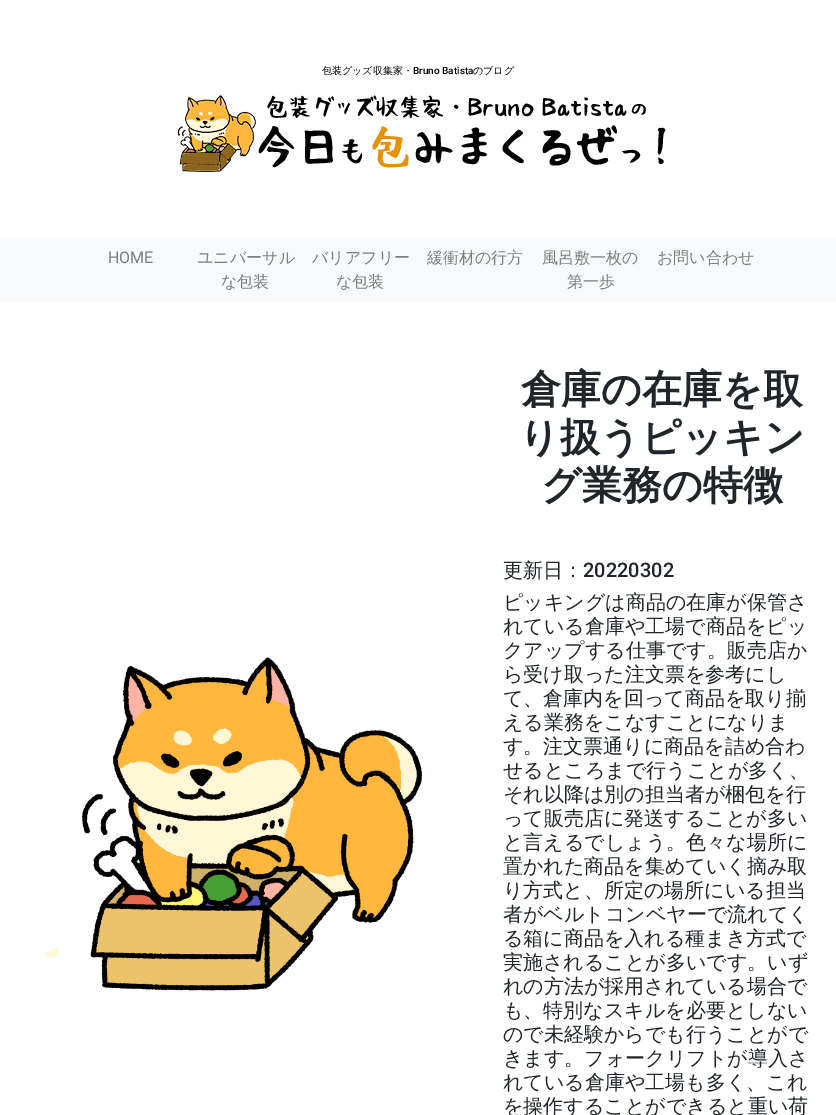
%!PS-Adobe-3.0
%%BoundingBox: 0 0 836 1115
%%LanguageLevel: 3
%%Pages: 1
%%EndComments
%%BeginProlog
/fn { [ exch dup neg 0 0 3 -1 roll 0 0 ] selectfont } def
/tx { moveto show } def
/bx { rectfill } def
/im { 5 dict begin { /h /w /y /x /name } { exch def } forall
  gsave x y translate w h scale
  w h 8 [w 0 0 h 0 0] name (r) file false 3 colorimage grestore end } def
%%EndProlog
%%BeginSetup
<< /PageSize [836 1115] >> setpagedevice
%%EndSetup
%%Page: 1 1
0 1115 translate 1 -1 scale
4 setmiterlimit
1 setgray
0 0 836 1115 bx
/WenQuanYiZenHei-Medium 10 fn
0 setgray
(包装グッズ収集家・) 322 74 tx
/Roboto-Medium 10 fn
(Bruno Batista) 413 74 tx
/WenQuanYiZenHei-Medium 10 fn
(のブログ) 473 74 tx
(image0.raw) 177 95 489 77 im
0.973 0.976 0.98 setrgbcolor
0 238 836 64 bx
/Roboto-Regular 16 fn
0.486 0.49 0.49 setrgbcolor
(HOME) 108 263 tx
/WenQuanYiZenHei-Medium 16 fn
(ユニバーサル) 197 263 tx
(な包装) 221 287 tx
(バリアフリー) 312 263 tx
(な包装) 336 287 tx
(緩衝材の行方) 427 263 tx
(風呂敷一枚の) 542 263 tx
(第一歩) 567 287 tx
(お問い合わせ) 657 263 tx
(image1.raw) 45 657 377 334 im
/WenQuanYiZenHei-Bold 40 fn
0.129 0.145 0.161 setrgbcolor
(倉庫の在庫を取) 521 403 tx
(り扱うピッキン) 519 451 tx
(グ業務の特徴) 541 499 tx
/WenQuanYiZenHei-Medium 20 fn
(更新日：) 503 577 tx
/Roboto-Medium 20 fn
(20220302) 583 577 tx
/WenQuanYiZenHei-Medium 20 fn
(ピッキングは商品の在庫が保管さ) 503 609 tx
(れている倉庫や工場で商品をピッ) 503 633 tx
(クアップする仕事です。販売店か) 503 657 tx
(ら受け取った注文票を参考にし) 503 681 tx
(て、倉庫内を回って商品を取り揃) 503 705 tx
(える業務をこなすことになりま) 503 729 tx
(す。注文票通りに商品を詰め合わ) 503 753 tx
(せるところまで行うことが多く、) 503 777 tx
(それ以降は別の担当者が梱包を行) 503 801 tx
(って販売店に発送することが多い) 503 825 tx
(と言えるでしょう。色々な場所に) 503 849 tx
(置かれた商品を集めていく摘み取) 503 873 tx
(り方式と、所定の場所にいる担当) 503 897 tx
(者がベルトコンベヤーで流れてく) 503 921 tx
(る箱に商品を入れる種まき方式で) 503 945 tx
(実施されることが多いです。いず) 503 969 tx
(れの方法が採用されている場合で) 503 993 tx
(も、特別なスキルを必要としない) 503 1017 tx
(ので未経験からでも行うことがで) 503 1041 tx
(きます。フォークリフトが導入さ) 503 1065 tx
(れている倉庫や工場も多く、これ) 503 1089 tx
(を操作することができると重い荷) 503 1113 tx
showpage
%%EOF
